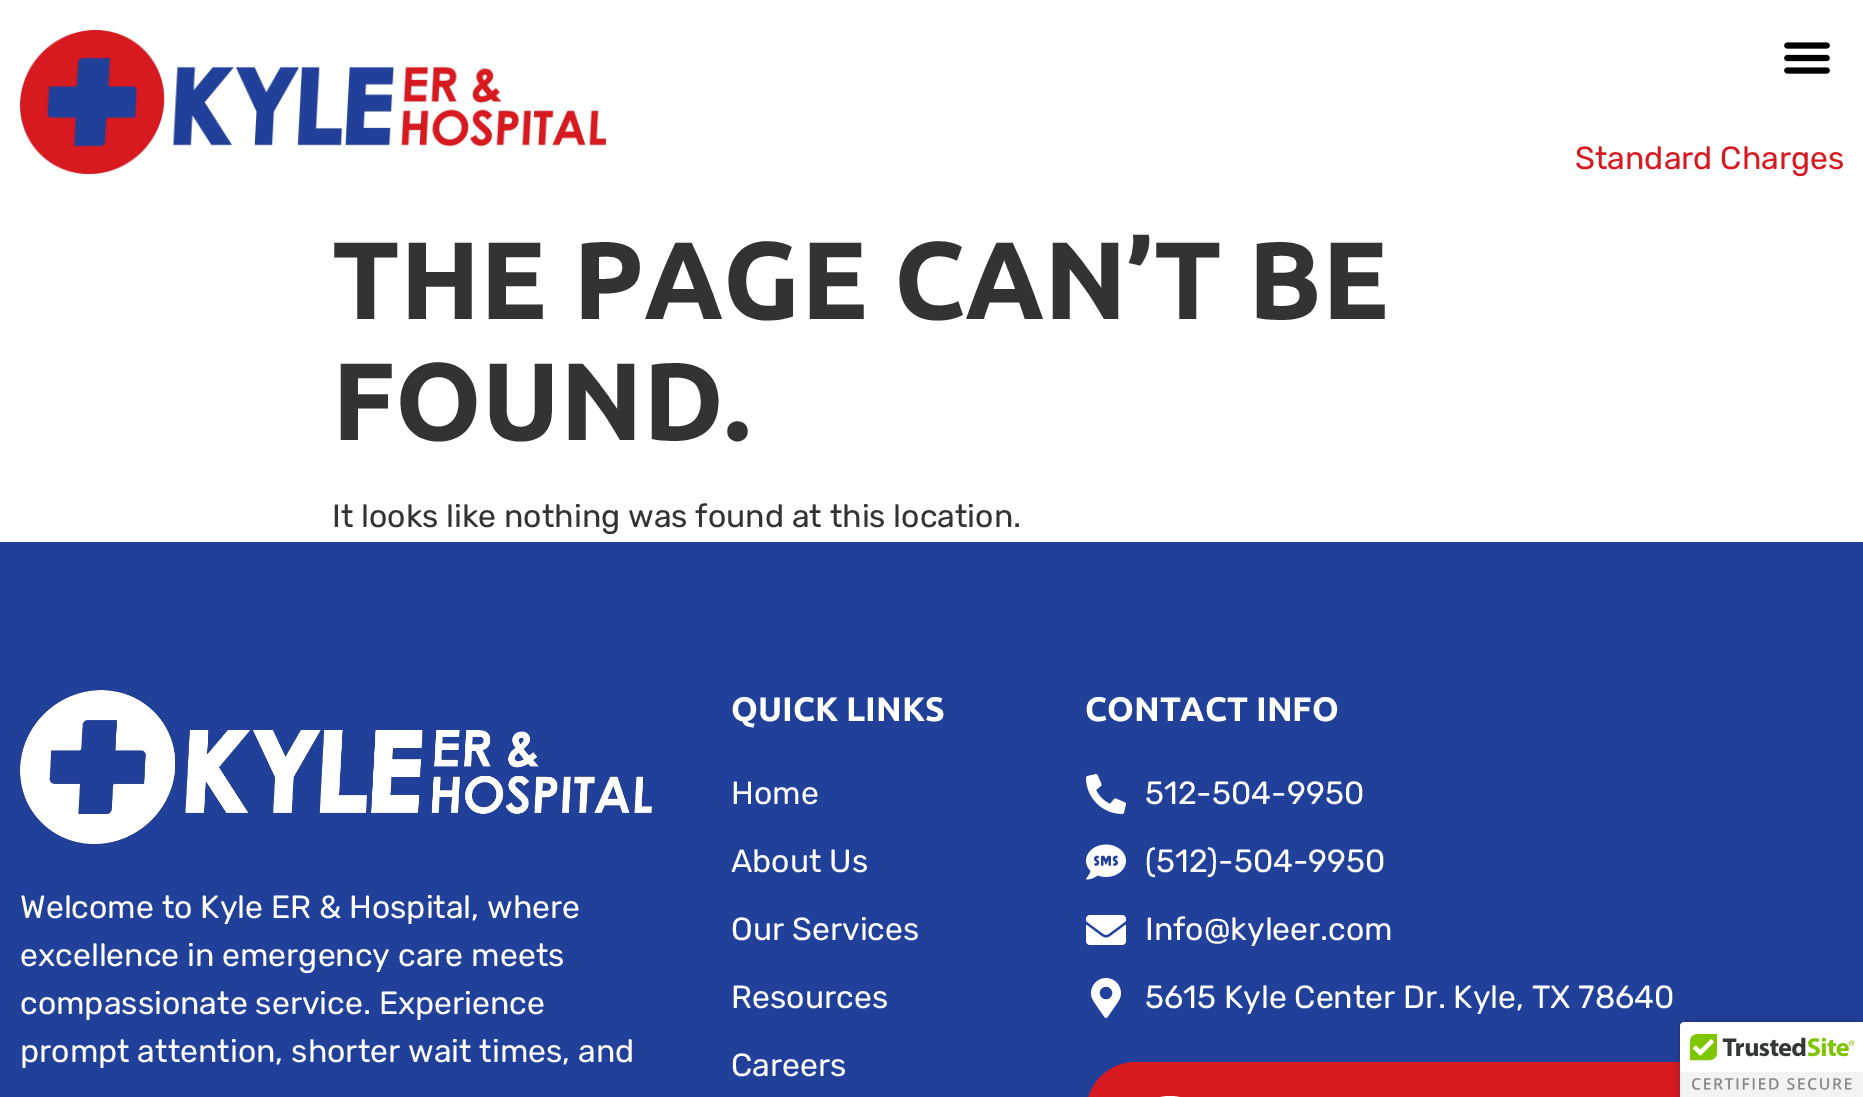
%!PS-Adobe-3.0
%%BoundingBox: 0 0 1863 1097
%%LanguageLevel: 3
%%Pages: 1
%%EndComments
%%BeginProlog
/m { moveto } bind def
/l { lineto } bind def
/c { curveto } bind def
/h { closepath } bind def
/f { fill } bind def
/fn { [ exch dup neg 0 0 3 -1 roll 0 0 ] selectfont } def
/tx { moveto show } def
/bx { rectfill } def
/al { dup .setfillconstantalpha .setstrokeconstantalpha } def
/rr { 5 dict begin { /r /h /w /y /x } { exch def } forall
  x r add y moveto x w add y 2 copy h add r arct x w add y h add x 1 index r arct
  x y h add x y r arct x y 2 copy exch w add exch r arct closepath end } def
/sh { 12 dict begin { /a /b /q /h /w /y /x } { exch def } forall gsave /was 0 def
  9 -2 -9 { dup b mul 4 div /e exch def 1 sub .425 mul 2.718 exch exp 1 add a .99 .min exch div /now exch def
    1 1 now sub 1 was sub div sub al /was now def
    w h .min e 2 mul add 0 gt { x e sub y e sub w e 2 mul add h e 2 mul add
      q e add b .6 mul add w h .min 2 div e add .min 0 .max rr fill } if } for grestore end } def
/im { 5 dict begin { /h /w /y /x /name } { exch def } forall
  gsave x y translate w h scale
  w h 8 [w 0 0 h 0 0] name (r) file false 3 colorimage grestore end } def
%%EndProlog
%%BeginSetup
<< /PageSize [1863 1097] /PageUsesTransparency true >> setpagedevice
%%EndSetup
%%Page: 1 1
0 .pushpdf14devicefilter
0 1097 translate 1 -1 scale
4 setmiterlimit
1 setgray
0 0 1863 1097 bx
(image0.raw) 20 30 586 144 im
(image1.raw) 1784 42 46 32 im
/Rubik-Regular 32 fn
0.843 0.098 0.125 setrgbcolor
(Standard Charges) 1575 169 tx
/Ubuntu-Bold 110 fn
0.2 setgray
(THE PAGE CAN’T BE) 332 319 tx
(FOUND.) 332 440 tx
/Rubik-Regular 32 fn
(It looks like nothing was found at this location.) 332 527 tx
0.129 0.251 0.604 setrgbcolor
0 542 1863 555 bx
(image2.raw) 20 690 632 154 im
1 setgray
(Welcome to Kyle ER & Hospital, where) 20 918 tx
(excellence in emergency care meets) 20 966 tx
(compassionate service. Experience) 20 1014 tx
(prompt attention, shorter wait times, and) 20 1062 tx
/Ubuntu-Bold 34 fn
(QUICK LINKS) 731 721 tx
/Rubik-Regular 32 fn
(Home) 731 804 tx
(About Us) 731 872 tx
(Our Services) 731 940 tx
(Resources) 731 1008 tx
(Careers) 731 1076 tx
/Ubuntu-Bold 34 fn
(CONTACT INFO) 1085 721 tx
(image3.raw) 1086 774 40 40 im
/Rubik-Regular 32 fn
(512-504-9950) 1145 804 tx
(image4.raw) 1086 844 40 36 im
(\(512\)-504-9950) 1145 872 tx
(image5.raw) 1086 915 40 30 im
(Info@kyleer.com) 1145 940 tx
(image6.raw) 1091 978 30 40 im
(5615 Kyle Center Dr. Kyle, TX 78640) 1145 1008 tx
0.843 0.098 0.125 setrgbcolor
1086 1062 742 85 50 rr f
1 setgray
1126 1096 88 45 44 rr f
0 setgray
1680 1022 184 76 4 5 0.2 sh
1 setgray
1684 1022 m 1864 1022 l 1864 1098 l 1680 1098 l 1680 1026 l 1680 1024 1682 1022 1684 1022 c h f
(image7.raw) 1680 1022 183 75 im
.poppdf14devicefilter showpage
%%EOF
